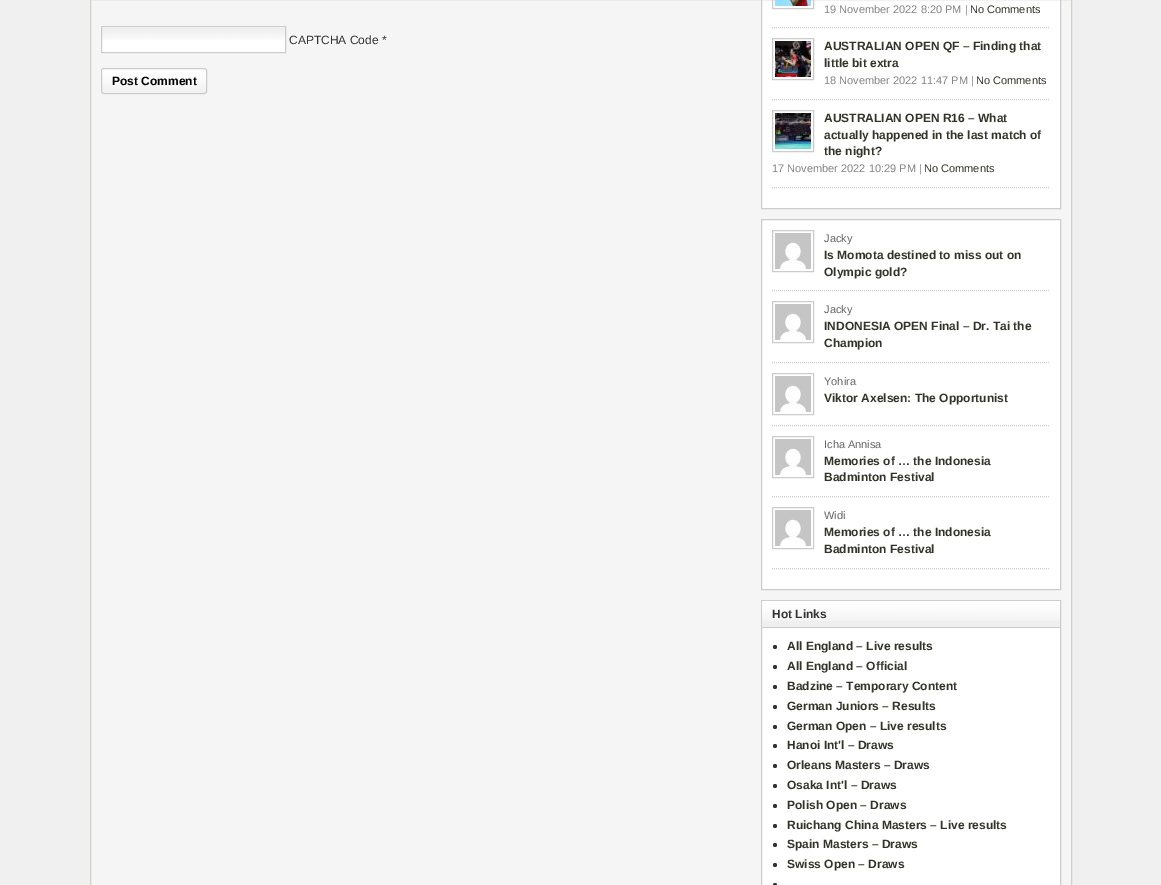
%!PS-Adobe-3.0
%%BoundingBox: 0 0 1161 885
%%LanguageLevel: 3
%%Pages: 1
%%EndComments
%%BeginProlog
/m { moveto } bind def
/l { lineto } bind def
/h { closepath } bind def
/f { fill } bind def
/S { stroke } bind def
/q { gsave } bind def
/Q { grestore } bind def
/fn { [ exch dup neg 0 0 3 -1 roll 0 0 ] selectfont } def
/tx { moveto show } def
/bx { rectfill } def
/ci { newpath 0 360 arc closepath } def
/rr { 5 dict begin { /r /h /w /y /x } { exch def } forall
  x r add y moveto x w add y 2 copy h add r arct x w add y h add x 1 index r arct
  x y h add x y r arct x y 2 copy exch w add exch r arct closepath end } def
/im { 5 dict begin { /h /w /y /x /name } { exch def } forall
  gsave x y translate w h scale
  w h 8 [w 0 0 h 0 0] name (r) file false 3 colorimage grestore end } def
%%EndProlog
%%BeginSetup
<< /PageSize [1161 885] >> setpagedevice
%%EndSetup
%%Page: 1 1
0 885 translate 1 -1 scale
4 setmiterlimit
0.941 setgray
0 0 1161 885 bx
0.961 setgray
90.5 -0.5 m 1071.5 -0.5 l 1071.5 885.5 l 90.5 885.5 l h q f Q
0.827 0.82 0.78 setrgbcolor
S
1 setgray
102 27 183 25 bx
(image0.raw) 102 28 183 12 im
0.8 setgray
101.5 26.5 184 26 rectstroke
/LiberationSans-Regular 12 fn
0.2 setgray
(CAPTCHA Code *) 289 44 tx
(image1.raw) 101 69 106 25 im
0.8 setgray
101.5 68.5 105 25 2.5 rr S
/LiberationSans-Bold 12 fn
0 setgray
(Post Comment) 112 85 tx
1 setgray
761.5 -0.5 m 1060.5 -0.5 l 1060.5 208.5 l 761.5 208.5 l h q f Q
0.8 setgray
S
[1 1] 0 setdash
772 27.5 m 1050 27.5 l S
[] 0 setdash
772.5 -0.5 41 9 rectstroke
(image2.raw) 775 0 36 6 im
/LiberationSans-Regular 11 fn
0.518 0.518 0.522 setrgbcolor
(19 November 2022 8:20 PM |) 824 13 tx
0.192 0.204 0.157 setrgbcolor
(No Comments) 970 13 tx
0.8 setgray
[1 1] 0 setdash
772 99.5 m 1050 99.5 l S
[] 0 setdash
772.5 38.5 41 41 rectstroke
(image3.raw) 775 41 36 36 im
/LiberationSans-Bold 12 fn
0.192 0.204 0.157 setrgbcolor
(AUSTRALIAN OPEN QF – Finding that) 824 50 tx
(little bit extra) 824 67 tx
/LiberationSans-Regular 11 fn
0.518 0.518 0.522 setrgbcolor
(18 November 2022 11:47 PM |) 824 84 tx
0.192 0.204 0.157 setrgbcolor
(No Comments) 976 84 tx
0.8 setgray
[1 1] 0 setdash
772 187.5 m 1050 187.5 l S
[] 0 setdash
772.5 110.5 41 41 rectstroke
(image4.raw) 775 113 36 36 im
/LiberationSans-Bold 12 fn
0.192 0.204 0.157 setrgbcolor
(AUSTRALIAN OPEN R16 – What) 824 122 tx
(actually happened in the last match of) 824 139 tx
(the night?) 824 155 tx
/LiberationSans-Regular 11 fn
0.518 0.518 0.522 setrgbcolor
(17 November 2022 10:29 PM |) 772 172 tx
0.192 0.204 0.157 setrgbcolor
(No Comments) 924 172 tx
1 setgray
761.5 219.5 m 1060.5 219.5 l 1060.5 589.5 l 761.5 589.5 l h q f Q
0.8 setgray
S
[1 1] 0 setdash
772 290.5 m 1050 290.5 l S
[] 0 setdash
772.5 230.5 41 41 rectstroke
(image5.raw) 775 233 36 36 im
0.4 setgray
(Jacky) 824 242 tx
/LiberationSans-Bold 12 fn
0.192 0.204 0.157 setrgbcolor
(Is Momota destined to miss out on) 824 259 tx
(Olympic gold?) 824 276 tx
0.8 setgray
[1 1] 0 setdash
772 362.5 m 1050 362.5 l S
[] 0 setdash
772.5 301.5 41 41 rectstroke
(image5.raw) 775 304 36 36 im
/LiberationSans-Regular 11 fn
0.4 setgray
(Jacky) 824 313 tx
/LiberationSans-Bold 12 fn
0.192 0.204 0.157 setrgbcolor
(INDONESIA OPEN Final – Dr. Tai the) 824 330 tx
(Champion) 824 347 tx
0.8 setgray
[1 1] 0 setdash
772 425.5 m 1050 425.5 l S
[] 0 setdash
772.5 373.5 41 41 rectstroke
(image5.raw) 775 376 36 36 im
/LiberationSans-Regular 11 fn
0.4 setgray
(Yohira) 824 385 tx
/LiberationSans-Bold 12 fn
0.192 0.204 0.157 setrgbcolor
(Viktor Axelsen: The Opportunist) 824 402 tx
0.8 setgray
[1 1] 0 setdash
772 496.5 m 1050 496.5 l S
[] 0 setdash
772.5 436.5 41 41 rectstroke
(image5.raw) 775 439 36 36 im
/LiberationSans-Regular 11 fn
0.4 setgray
(Icha Annisa) 824 448 tx
/LiberationSans-Bold 12 fn
0.192 0.204 0.157 setrgbcolor
(Memories of … the Indonesia) 824 465 tx
(Badminton Festival) 824 481 tx
0.8 setgray
[1 1] 0 setdash
772 568.5 m 1050 568.5 l S
[] 0 setdash
772.5 507.5 41 41 rectstroke
(image5.raw) 775 510 36 36 im
/LiberationSans-Regular 11 fn
0.4 setgray
(Widi) 824 519 tx
/LiberationSans-Bold 12 fn
0.192 0.204 0.157 setrgbcolor
(Memories of … the Indonesia) 824 536 tx
(Badminton Festival) 824 553 tx
1 setgray
762 628 298 257 bx
0.8 setgray
761.5 600.5 299 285 rectstroke
0.937 setgray
762 621 298 6 bx
(image6.raw) 762 601 298 20 im
0.8 setgray
762 627 298 1 bx
0.2 setgray
(Hot Links) 772 618 tx
775 647 2 ci f
0.192 0.204 0.157 setrgbcolor
(All England – Live results) 787 650 tx
0.2 setgray
775 667 2 ci f
0.192 0.204 0.157 setrgbcolor
(All England – Official) 787 670 tx
0.2 setgray
775 687 2 ci f
0.192 0.204 0.157 setrgbcolor
(Badzine – Temporary Content) 787 690 tx
0.2 setgray
775 707 2 ci f
0.192 0.204 0.157 setrgbcolor
(German Juniors – Results) 787 710 tx
0.2 setgray
775 727 2 ci f
0.192 0.204 0.157 setrgbcolor
(German Open – Live results) 787 730 tx
0.2 setgray
775 746 2 ci f
0.192 0.204 0.157 setrgbcolor
(Hanoi Int'l – Draws) 787 749 tx
0.2 setgray
775 766 2 ci f
0.192 0.204 0.157 setrgbcolor
(Orleans Masters – Draws) 787 769 tx
0.2 setgray
775 786 2 ci f
0.192 0.204 0.157 setrgbcolor
(Osaka Int'l – Draws) 787 789 tx
0.2 setgray
775 806 2 ci f
0.192 0.204 0.157 setrgbcolor
(Polish Open – Draws) 787 809 tx
0.2 setgray
775 826 2 ci f
0.192 0.204 0.157 setrgbcolor
(Ruichang China Masters – Live results) 787 829 tx
0.2 setgray
775 845 2 ci f
0.192 0.204 0.157 setrgbcolor
(Spain Masters – Draws) 787 848 tx
0.2 setgray
775 865 2 ci f
0.192 0.204 0.157 setrgbcolor
(Swiss Open – Draws) 787 868 tx
0.2 setgray
775 885 2 ci f
showpage
%%EOF
